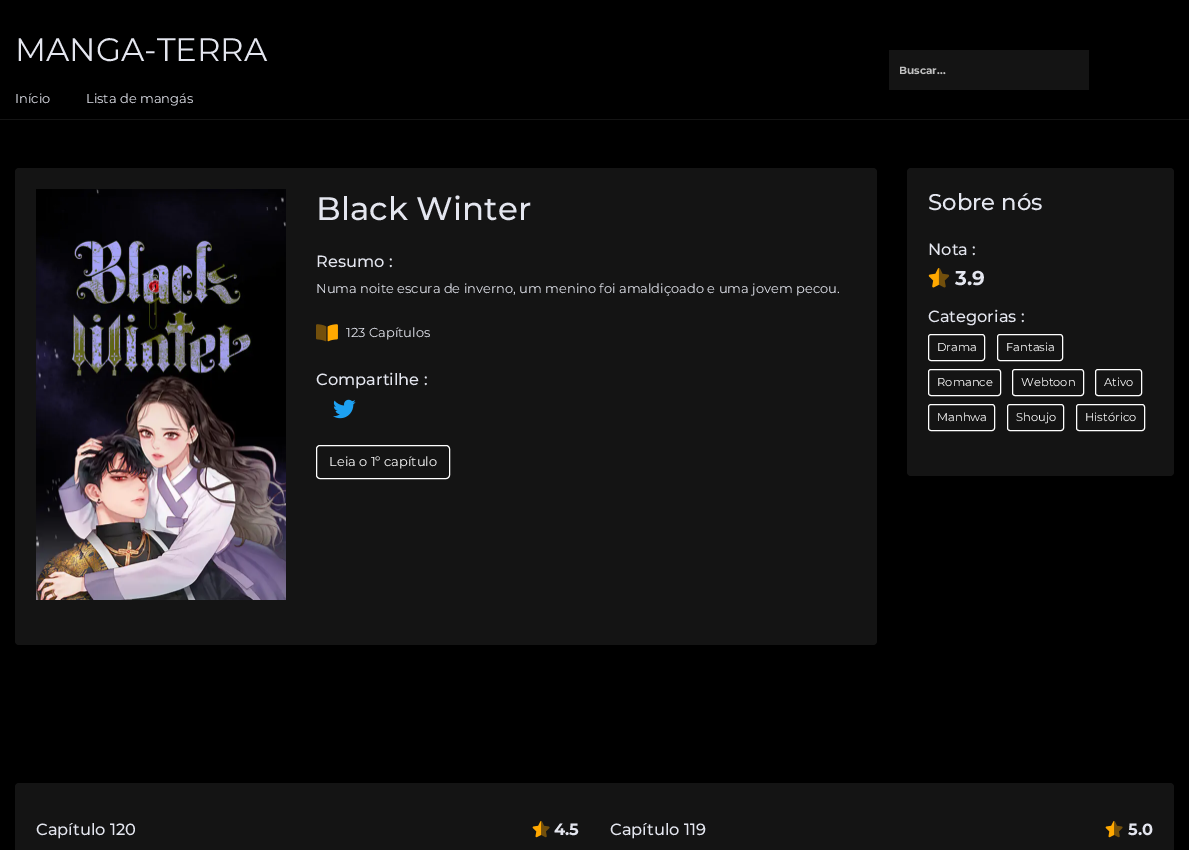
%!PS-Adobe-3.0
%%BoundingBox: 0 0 1189 850
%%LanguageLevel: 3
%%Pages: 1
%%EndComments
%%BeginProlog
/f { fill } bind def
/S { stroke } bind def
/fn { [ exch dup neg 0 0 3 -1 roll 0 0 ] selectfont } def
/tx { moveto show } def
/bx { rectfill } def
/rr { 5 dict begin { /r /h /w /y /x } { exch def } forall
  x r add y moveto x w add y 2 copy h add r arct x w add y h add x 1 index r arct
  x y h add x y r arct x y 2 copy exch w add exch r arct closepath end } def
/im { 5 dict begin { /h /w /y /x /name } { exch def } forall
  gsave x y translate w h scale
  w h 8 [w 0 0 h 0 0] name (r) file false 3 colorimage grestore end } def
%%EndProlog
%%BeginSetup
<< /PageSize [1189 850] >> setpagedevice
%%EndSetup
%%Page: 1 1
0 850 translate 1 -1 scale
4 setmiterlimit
0 setgray
0 0 1189 850 bx
0.078 setgray
0 119 1189 1 bx
/Montserrat-Regular 32.5 fn
0.894 0.902 0.937 setrgbcolor
(MANGA-TERRA) 15 61 tx
/Montserrat-Regular 13 fn
(Início) 15 103 tx
(Lista de mangás) 86 103 tx
0.078 setgray
889 50 200 40 bx
/Montserrat-Bold 10.5 fn
0.761 setgray
(Buscar...) 899 74 tx
0.078 setgray
15 168 862 477 4 rr f
(image0.raw) 36 189 250 411 im
/Montserrat-Medium 32.5 fn
0.894 0.902 0.937 setrgbcolor
(Black Winter) 316 220 tx
/Montserrat-Medium 16.25 fn
(Resumo :) 316 267 tx
/Montserrat-Regular 13 fn
(Numa noite escura de inverno, um menino foi amaldiçoado e uma jovem pecou.) 316 293 tx
(image1.raw) 316 324 22 18 im
(123 Capítulos) 346 337 tx
/Montserrat-Medium 16.25 fn
(Compartilhe :) 316 385 tx
(image2.raw) 333 399 23 20 im
1 setgray
316.5 445.5 133 33 3.5 rr S
/Montserrat-Regular 13 fn
(Leia o 1º capítulo) 329 466 tx
0.078 setgray
907 168 267 308 4 rr f
/Montserrat-Medium 22.75 fn
0.894 0.902 0.937 setrgbcolor
(Sobre nós) 928 210 tx
/Montserrat-Medium 16.25 fn
(Nota :) 928 255 tx
(image3.raw) 928 268 22 20 im
/Montserrat-Bold 20 fn
(3.9) 955 285 tx
/Montserrat-Medium 16.25 fn
(Categorias :) 928 322 tx
1 setgray
928.5 334.5 56 26 2.5 rr S
/Montserrat-Regular 11.5 fn
(Drama) 937 351 tx
997.5 334.5 65 26 2.5 rr S
(Fantasia) 1006 351 tx
928.5 369.5 72 26 2.5 rr S
(Romance) 937 386 tx
1012.5 369.5 71 26 2.5 rr S
(Webtoon) 1021 386 tx
1095.5 369.5 46 26 2.5 rr S
(Ativo) 1104 386 tx
928.5 404.5 66 26 2.5 rr S
(Manhwa) 937 421 tx
1007.5 404.5 56 26 2.5 rr S
(Shoujo) 1016 421 tx
1076.5 404.5 68 26 2.5 rr S
(Histórico) 1085 421 tx
0.078 setgray
15 783 1159 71 4 rr f
/Montserrat-Medium 16.25 fn
0.894 0.902 0.937 setrgbcolor
(Capítulo 120) 36 835 tx
(image4.raw) 532 821 18 17 im
/Montserrat-Bold 16.25 fn
(4.5) 554 835 tx
/Montserrat-Medium 16.25 fn
(Capítulo 119) 610 835 tx
(image4.raw) 1105 821 18 17 im
/Montserrat-Bold 16.25 fn
(5.0) 1128 835 tx
showpage
%%EOF
